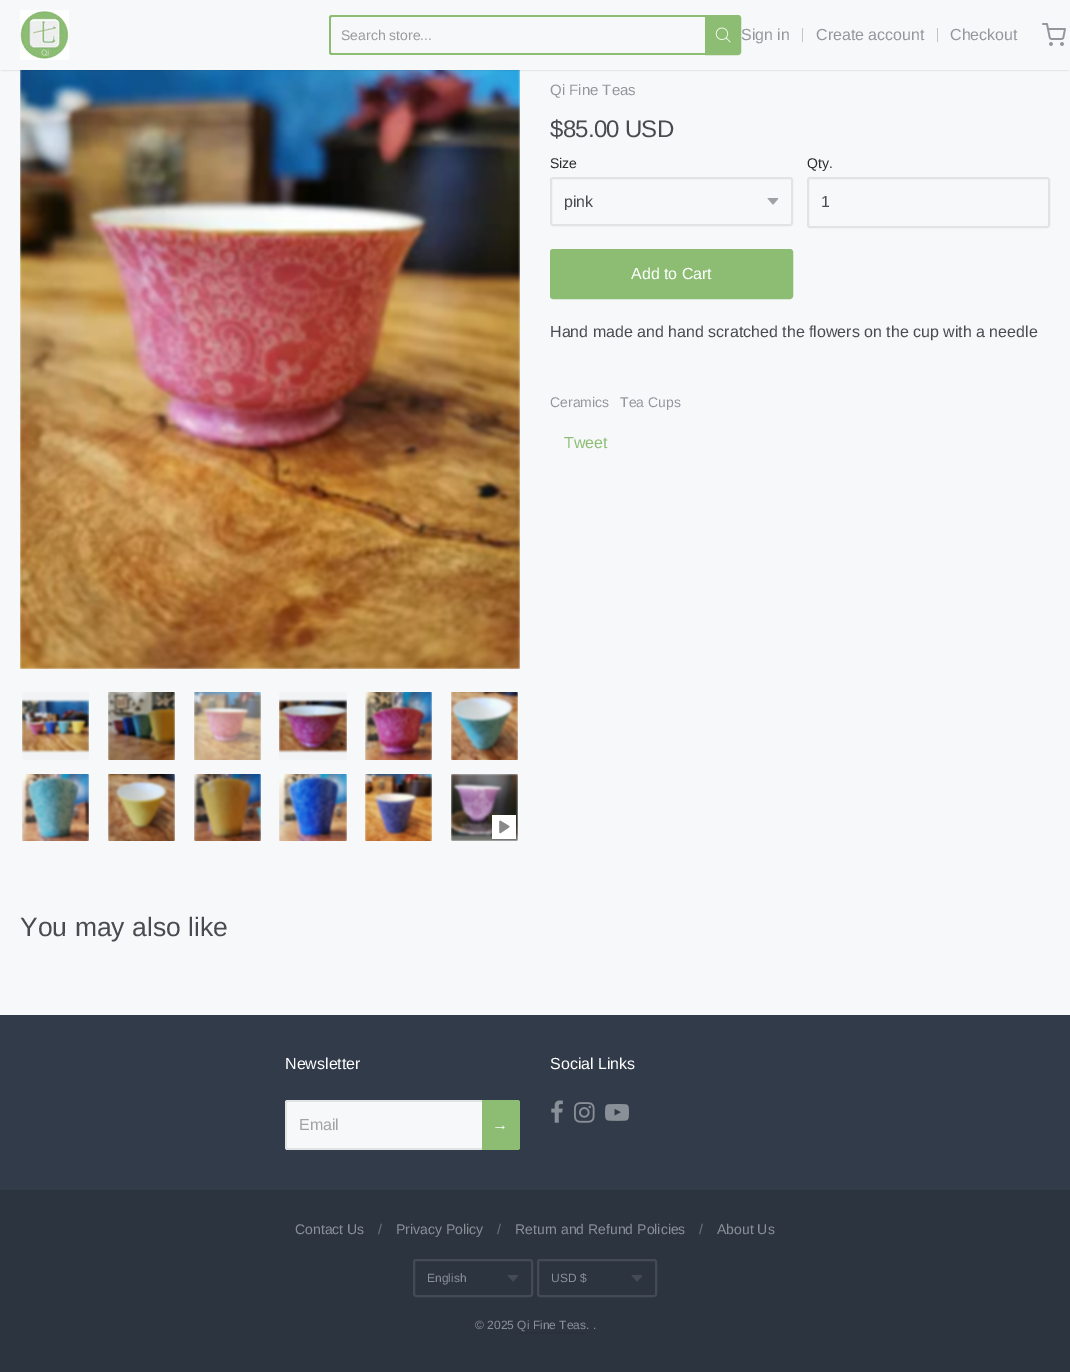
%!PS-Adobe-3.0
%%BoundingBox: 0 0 1070 1372
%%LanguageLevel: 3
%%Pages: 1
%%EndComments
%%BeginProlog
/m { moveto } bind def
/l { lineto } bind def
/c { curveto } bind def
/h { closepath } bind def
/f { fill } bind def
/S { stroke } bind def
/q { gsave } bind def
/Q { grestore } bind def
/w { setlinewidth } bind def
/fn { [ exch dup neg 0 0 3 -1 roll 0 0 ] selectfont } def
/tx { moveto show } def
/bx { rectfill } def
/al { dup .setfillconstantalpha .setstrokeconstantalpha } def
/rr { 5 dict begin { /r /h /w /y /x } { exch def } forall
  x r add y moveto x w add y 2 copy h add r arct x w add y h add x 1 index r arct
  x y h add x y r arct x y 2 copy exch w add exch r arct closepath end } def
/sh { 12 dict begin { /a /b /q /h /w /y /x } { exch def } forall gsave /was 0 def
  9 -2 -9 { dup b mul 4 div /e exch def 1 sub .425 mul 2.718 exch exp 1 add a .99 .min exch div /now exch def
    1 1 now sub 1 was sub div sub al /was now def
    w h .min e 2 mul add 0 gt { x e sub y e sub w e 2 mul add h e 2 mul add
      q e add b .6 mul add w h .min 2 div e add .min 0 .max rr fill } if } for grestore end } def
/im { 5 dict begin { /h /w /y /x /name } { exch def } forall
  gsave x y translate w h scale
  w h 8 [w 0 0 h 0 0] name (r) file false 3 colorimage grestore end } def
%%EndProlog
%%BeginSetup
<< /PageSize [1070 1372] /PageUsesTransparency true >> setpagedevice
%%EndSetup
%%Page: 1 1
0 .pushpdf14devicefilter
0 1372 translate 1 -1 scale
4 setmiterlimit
0.969 0.973 0.976 setrgbcolor
0 0 1070 1372 bx
(image3.raw) 20 70 500 599 im
0 setgray
2 4 1066 66 0 1 0.2 sh
0.969 0.973 0.976 setrgbcolor
0 2 1070 68 bx
(image0.raw) 20 10 49 50 im
0.549 0.741 0.451 setrgbcolor
332 15 m 705 15 l 705 55 l 332 55 l 330 55 329 54 329 52 c 329 18 l 329 16 330 15 332 15 c h 332 17 m 705 17 l 705 53 l 332 53 l 331 53 331 53 331 52 c 331 18 l 331 17 331 17 332 17 c h eofill
/LiberationSans-Regular 14 fn
0.6 0.608 0.616 setrgbcolor
(Search store...) 341 40 tx
0.549 0.741 0.451 setrgbcolor
706 16 m 738 16 l 739 16 740 17 740 18 c 740 52 l 740 53 739 54 738 54 c 706 54 l h q f Q
2 w
S
(image1.raw) 715 27 16 16 im
/LiberationSans-Regular 16 fn
0.576 0.592 0.616 setrgbcolor
(Sign in) 741 40 tx
0.765 0.769 0.776 setrgbcolor
802 28 1 14 bx
0.576 0.592 0.616 setrgbcolor
(Create account) 816 40 tx
0.765 0.769 0.776 setrgbcolor
937 28 1 14 bx
0.576 0.592 0.616 setrgbcolor
(Checkout) 950 40 tx
(image2.raw) 1042 23 24 23 im
0.945 0.953 0.957 setrgbcolor
21 691 69 70 2 rr q f Q
0.969 0.973 0.976 setrgbcolor
S
(image4.raw) 22 699 67 54 im
0.945 0.953 0.957 setrgbcolor
107 691 69 70 2 rr q f Q
0.969 0.973 0.976 setrgbcolor
S
(image5.raw) 108 692 67 68 im
0.953 0.961 0.965 setrgbcolor
193 691 69 70 2 rr q f Q
0.969 0.973 0.976 setrgbcolor
S
(image6.raw) 194 692 67 68 im
0.945 0.953 0.957 setrgbcolor
278 691 70 70 2 rr q f Q
0.969 0.973 0.976 setrgbcolor
S
(image7.raw) 279 699 68 54 im
0.945 0.953 0.957 setrgbcolor
364 691 69 70 2 rr q f Q
0.969 0.973 0.976 setrgbcolor
S
(image8.raw) 365 692 67 68 im
0.945 0.953 0.957 setrgbcolor
450 691 69 70 2 rr q f Q
0.969 0.973 0.976 setrgbcolor
S
(image9.raw) 451 692 67 68 im
0.945 0.953 0.957 setrgbcolor
21 773 69 69 2 rr q f Q
0.969 0.973 0.976 setrgbcolor
S
(image10.raw) 22 774 67 67 im
0.945 0.953 0.957 setrgbcolor
107 773 69 69 2 rr q f Q
0.969 0.973 0.976 setrgbcolor
S
(image11.raw) 108 774 67 67 im
0.945 0.953 0.957 setrgbcolor
193 773 69 69 2 rr q f Q
0.969 0.973 0.976 setrgbcolor
S
(image12.raw) 194 774 67 67 im
0.945 0.953 0.957 setrgbcolor
278 773 70 69 2 rr q f Q
0.969 0.973 0.976 setrgbcolor
S
(image13.raw) 279 774 68 67 im
0.945 0.953 0.957 setrgbcolor
364 773 69 69 2 rr q f Q
0.969 0.973 0.976 setrgbcolor
S
(image14.raw) 365 774 67 67 im
0.945 0.953 0.957 setrgbcolor
450 773 69 69 2 rr q f Q
0.969 0.973 0.976 setrgbcolor
S
(image15.raw) 451 774 67 67 im
(image16.raw) 491 815 26 25 im
/LiberationSans-Regular 15 fn
0.576 0.592 0.616 setrgbcolor
(Qi Fine Teas) 550 95 tx
/LiberationSans-Regular 24 fn
0.282 0.294 0.31 setrgbcolor
550 137 m -0.75 0 ($85.00 USD) ashow
/LiberationSans-Regular 14 fn
0.165 0.169 0.169 setrgbcolor
(Size) 550 168 tx
(image17.raw) 767 198 12 7 im
0.882 0.89 0.894 setrgbcolor
551 178 241 47 2 rr S
q
564 193 193 17 rectclip
/LiberationSans-Regular 16 fn
0.282 0.294 0.31 setrgbcolor
(pink) 564 207 tx
Q
0.165 0.169 0.169 setrgbcolor
(Qty.) 807 168 tx
0.882 0.89 0.894 setrgbcolor
808 178 241 49 2 rr S
/LiberationSans-Regular 16 fn
0.282 0.294 0.31 setrgbcolor
(1) 821 207 tx
0.549 0.741 0.451 setrgbcolor
551 250 241 48 2 rr q f Q
S
1 setgray
(Add to Cart) 631 279 tx
0.282 0.294 0.31 setrgbcolor
(Hand made and hand scratched the flowers on the cup with a needle) 550 337 tx
/LiberationSans-Regular 14 fn
0.576 0.592 0.616 setrgbcolor
(Ceramics) 550 407 tx
(Tea Cups) 620 407 tx
/LiberationSans-Regular 16 fn
0.549 0.741 0.451 setrgbcolor
(Tweet) 564 448 tx
/LiberationSans-Regular 26.5 fn
0.282 0.294 0.31 setrgbcolor
(You may also like) 20 936 tx
0.192 0.231 0.286 setrgbcolor
0 1015 1070 175 bx
/LiberationSans-Regular 16 fn
1 setgray
(Newsletter) 285 1069 tx
0.969 0.973 0.976 setrgbcolor
288 1100 m 482 1100 l 482 1150 l 288 1150 l 286.5 1150 285 1148.5 285 1147 c 285 1103 l 285 1101.5 286.5 1100 288 1100 c h f
0.882 0.89 0.894 setrgbcolor
288 1100 m 482 1100 l 482 1150 l 288 1150 l 286 1150 285 1149 285 1147 c 285 1103 l 285 1101 286 1100 288 1100 c h 288 1102 m 482 1102 l 482 1148 l 288 1148 l 287 1148 287 1148 287 1147 c 287 1103 l 287 1102 287 1102 288 1102 c h eofill
0.627 0.635 0.643 setrgbcolor
(Email) 299 1130 tx
0.549 0.741 0.451 setrgbcolor
482 1100 m 517 1100 l 518.5 1100 520 1101.5 520 1103 c 520 1147 l 520 1148.5 518.5 1150 517 1150 c 482 1150 l h f
482 1100 m 517 1100 l 519 1100 520 1101 520 1103 c 520 1147 l 520 1149 519 1150 517 1150 c 482 1150 l h 482 1102 m 517 1102 l 518 1102 518 1102 518 1103 c 518 1147 l 518 1148 518 1148 517 1148 c 482 1148 l h eofill
1 setgray
(→) 492 1130 tx
(Social Links) 550 1069 tx
(image18.raw) 551 1100 12 23 im
(image19.raw) 574 1102 21 21 im
(image20.raw) 605 1104 24 17 im
0.173 0.204 0.247 setrgbcolor
0 1190 1070 182 bx
/LiberationSans-Regular 14 fn
0.541 0.565 0.596 setrgbcolor
(Contact Us) 295 1234 tx
0.431 0.455 0.49 setrgbcolor
(/) 378 1234 tx
0.541 0.565 0.596 setrgbcolor
(Privacy Policy) 396 1234 tx
0.431 0.455 0.49 setrgbcolor
(/) 497 1234 tx
0.541 0.565 0.596 setrgbcolor
(Return and Refund Policies) 515 1234 tx
0.431 0.455 0.49 setrgbcolor
(/) 699 1234 tx
0.541 0.565 0.596 setrgbcolor
(About Us) 717 1234 tx
(image21.raw) 507 1275 12 7 im
0.267 0.294 0.333 setrgbcolor
414 1260 118 36 2 rr S
/LiberationSans-Regular 12 fn
0.541 0.565 0.596 setrgbcolor
(English) 427 1282 tx
(image21.raw) 631 1275 12 7 im
0.267 0.294 0.333 setrgbcolor
538 1260 118 36 2 rr S
0.541 0.565 0.596 setrgbcolor
(USD $) 551 1282 tx
(© 2025 Qi Fine Teas. .) 475 1329 tx
0.165 0.192 0.235 setrgbcolor
517 1332 68 2 bx
.poppdf14devicefilter showpage
%%EOF
